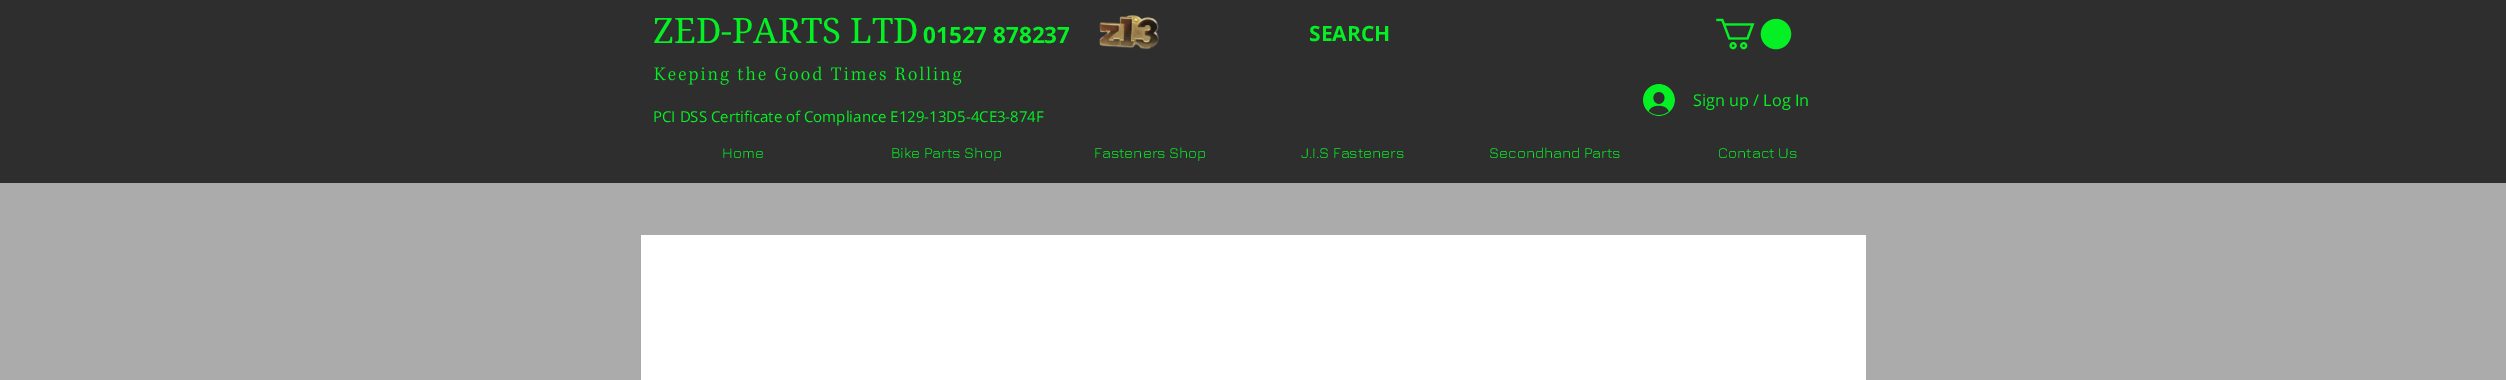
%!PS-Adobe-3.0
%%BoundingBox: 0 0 2506 380
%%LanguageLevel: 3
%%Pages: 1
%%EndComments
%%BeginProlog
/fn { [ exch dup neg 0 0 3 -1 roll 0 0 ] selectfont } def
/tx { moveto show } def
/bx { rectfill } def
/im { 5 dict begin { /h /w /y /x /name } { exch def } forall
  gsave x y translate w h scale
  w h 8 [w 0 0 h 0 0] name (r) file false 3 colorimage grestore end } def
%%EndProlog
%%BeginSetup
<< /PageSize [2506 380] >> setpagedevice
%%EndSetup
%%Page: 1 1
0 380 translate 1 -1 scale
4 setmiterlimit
0.671 setgray
0 0 2506 380 bx
0.184 0.18 0.18 setrgbcolor
0 0 2506 183 bx
/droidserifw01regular-Regular 35 fn
0.02 0.941 0.141 setrgbcolor
(ZED-PARTS LTD) 653 43 tx
/OpenSans-Bold 22.5 fn
(01527 878237) 923 43 tx
(image0.raw) 1099 15 60 35 im
/OpenSans-Bold 21 fn
(SEARCH) 1309 41 tx
(image1.raw) 1716 18 76 32 im
(image2.raw) 654 66 308 19 im
(image3.raw) 1643 84 32 32 im
/OpenSans-Regular 16.25 fn
(Sign up / Log In) 1693 106 tx
/OpenSans-Regular 15 fn
(PCI DSS Certificate of Compliance E129-13D5-4CE3-874F) 653 122 tx
/Jura-Regular 15 fn
(Home) 722 158 tx
(Bike Parts Shop) 891 158 tx
(Fasteners Shop) 1094 158 tx
(J.I.S Fasteners) 1301 158 tx
(Secondhand Parts) 1489 158 tx
(Contact Us) 1718 158 tx
1 setgray
641 235 1225 145 bx
showpage
%%EOF
